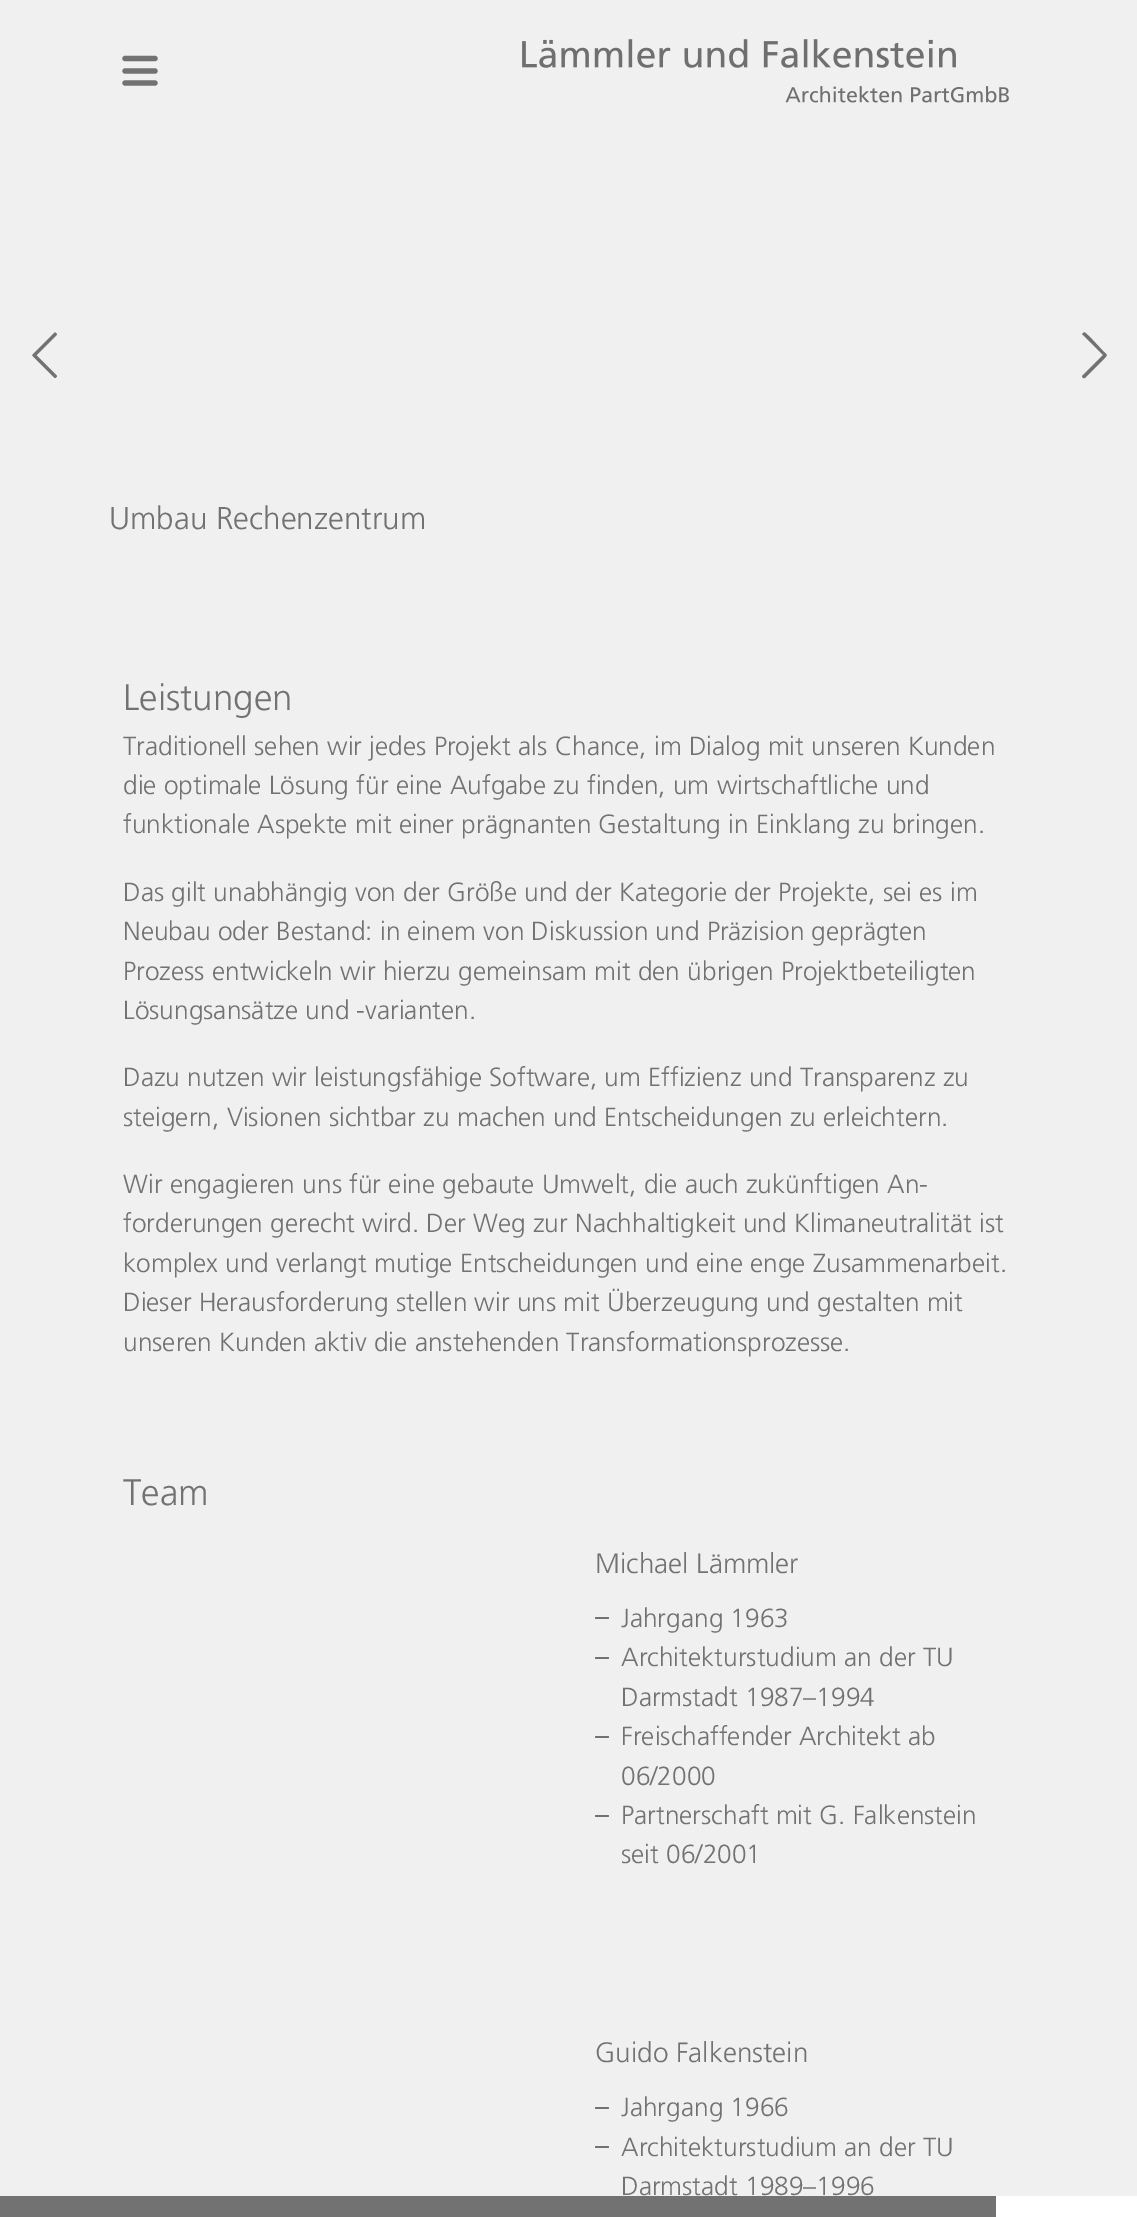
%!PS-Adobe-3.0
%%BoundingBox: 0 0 1137 2217
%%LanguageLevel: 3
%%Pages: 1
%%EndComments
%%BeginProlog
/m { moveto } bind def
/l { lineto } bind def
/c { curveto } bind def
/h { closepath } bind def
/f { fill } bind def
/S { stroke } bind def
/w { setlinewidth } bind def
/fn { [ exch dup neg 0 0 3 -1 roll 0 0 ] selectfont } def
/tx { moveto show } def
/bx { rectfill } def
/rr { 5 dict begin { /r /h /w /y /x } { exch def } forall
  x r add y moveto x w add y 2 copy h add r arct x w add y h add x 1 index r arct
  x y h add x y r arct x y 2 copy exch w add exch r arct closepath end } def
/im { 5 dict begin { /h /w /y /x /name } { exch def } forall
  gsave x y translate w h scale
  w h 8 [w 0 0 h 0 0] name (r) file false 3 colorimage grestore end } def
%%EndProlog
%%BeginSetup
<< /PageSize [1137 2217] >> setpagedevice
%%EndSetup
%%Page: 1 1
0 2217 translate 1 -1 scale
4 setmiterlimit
0.941 setgray
0 0 1137 2217 bx
0.447 setgray
5.2 w
1 setlinecap
125 58.5 m 155 58.5 l 125 71 m 155 71 l 125 83 m 155 83 l S
(image0.raw) 522 39 487 64 im
(image1.raw) 32 332 25 47 im
1083 333 m 1082 334 1082 335 1083 335 c 1103 355 l 1082 376 l 1082 377 1084 379 1085 378 c 1103 360 l 1108 354 1108 356 1103 351 c 1089 336 l 1087 335 1085 331 1083 333 c h f
/Frutiger-Regular 31.5 fn
(Umbau Rechenzentrum) 109 529 tx
/Frutiger-Regular 36.75 fn
(Leistungen) 123 710 tx
/Frutiger-Regular 26.25 fn
(Traditionell sehen wir jedes Projekt als Chance, im Dialog mit unseren Kunden) 123 755 tx
(die optimale Lösung für eine Aufgabe zu finden, um wirtschaftliche und) 123 794 tx
(funktionale Aspekte mit einer prägnanten Gestaltung in Einklang zu bringen.) 123 833 tx
(Das gilt unabhängig von der Größe und der Kategorie der Projekte, sei es im) 123 901 tx
(Neubau oder Bestand: in einem von Diskussion und Präzision geprägten) 123 940 tx
(Prozess entwickeln wir hierzu gemeinsam mit den übrigen Projektbeteiligten) 123 980 tx
(Lösungsansätze und -varianten.) 123 1019 tx
(Dazu nutzen wir leistungsfähige Software, um Effizienz und Transparenz zu) 123 1086 tx
(steigern, Visionen sichtbar zu machen und Entscheidungen zu erleichtern.) 123 1126 tx
(Wir engagieren uns für eine gebaute Umwelt, die auch zukünftigen An-) 123 1193 tx
(forderungen gerecht wird. Der Weg zur Nachhaltigkeit und Klimaneutralität ist) 123 1232 tx
(komplex und verlangt mutige Entscheidungen und eine enge Zusammenarbeit.) 123 1272 tx
(Dieser Herausforderung stellen wir uns mit Überzeugung und gestalten mit) 123 1311 tx
(unseren Kunden aktiv die anstehenden Transformationsprozesse.) 123 1351 tx
/Frutiger-Regular 36.75 fn
(Team) 123 1505 tx
/Frutiger-Regular 28 fn
(Michael Lämmler) 595 1573 tx
595 1617 14 2 1 rr f
/Frutiger-Regular 26.25 fn
(Jahrgang 1963) 621 1627 tx
595 1657 14 2 1 rr f
(Architekturstudium an der TU) 621 1666 tx
(Darmstadt 1987–1994) 621 1706 tx
595 1736 14 2 1 rr f
(Freischaffender Architekt ab) 621 1745 tx
(06/2000) 621 1785 tx
595 1815 14 2 1 rr f
(Partnerschaft mit G. Falkenstein) 621 1824 tx
(seit 06/2001) 621 1863 tx
/Frutiger-Regular 28 fn
(Guido Falkenstein) 595 2062 tx
595 2107 14 2 1 rr f
/Frutiger-Regular 26.25 fn
(Jahrgang 1966) 621 2116 tx
595 2146 14 2 1 rr f
(Architekturstudium an der TU) 621 2156 tx
(Darmstadt 1989–1996) 621 2195 tx
0 2196 996 21 bx
1 setgray
996 2196 141 21 bx
showpage
%%EOF
